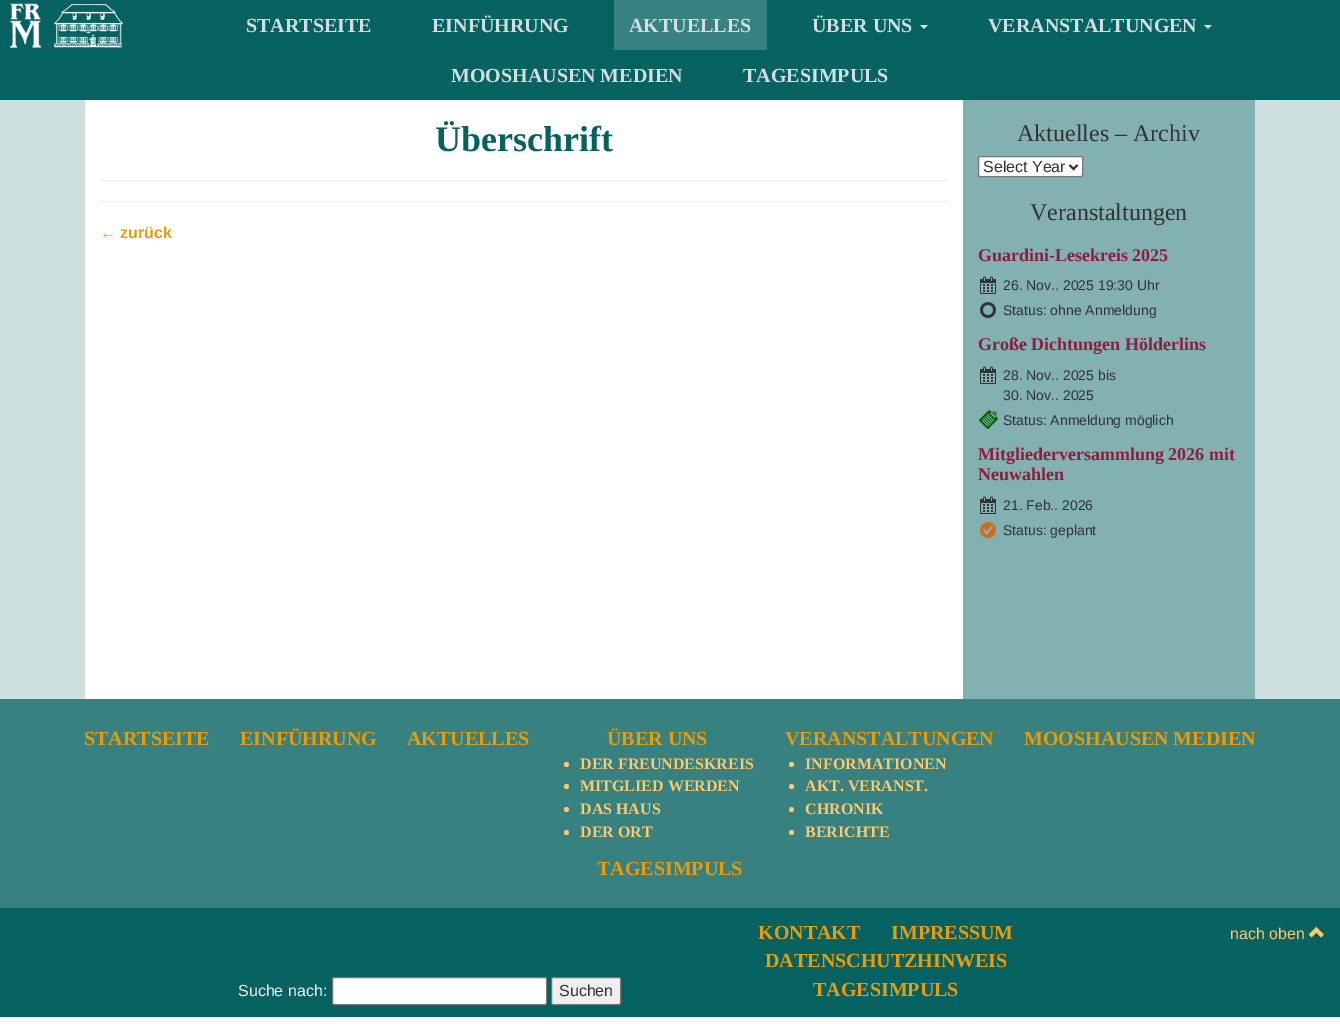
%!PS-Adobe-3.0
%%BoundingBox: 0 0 1340 1034
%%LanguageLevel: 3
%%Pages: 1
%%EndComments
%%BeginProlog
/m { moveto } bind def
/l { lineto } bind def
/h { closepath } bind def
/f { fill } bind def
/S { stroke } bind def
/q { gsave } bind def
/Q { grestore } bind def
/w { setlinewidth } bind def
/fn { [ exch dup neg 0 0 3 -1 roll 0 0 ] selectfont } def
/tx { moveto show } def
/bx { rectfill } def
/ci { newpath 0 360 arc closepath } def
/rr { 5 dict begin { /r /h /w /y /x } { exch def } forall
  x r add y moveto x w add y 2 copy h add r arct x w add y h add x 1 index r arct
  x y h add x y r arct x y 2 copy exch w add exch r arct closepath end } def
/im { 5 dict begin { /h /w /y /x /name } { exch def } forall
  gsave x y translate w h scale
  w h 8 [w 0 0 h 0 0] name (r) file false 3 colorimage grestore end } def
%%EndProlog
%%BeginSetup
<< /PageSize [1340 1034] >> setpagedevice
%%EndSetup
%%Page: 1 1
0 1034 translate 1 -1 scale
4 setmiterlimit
1 setgray
0 0 1340 1034 bx
0.024 0.38 0.38 setrgbcolor
0 0 1340 100 bx
(image0.raw) 10 3 113 45 im
/LiberationSerif-Bold 20 fn
0.831 0.871 0.871 setrgbcolor
(STARTSEITE) 246 32 tx
(EINFÜHRUNG) 432 32 tx
0.22 0.506 0.506 setrgbcolor
614 0 153 50 bx
0.831 0.871 0.871 setrgbcolor
(AKTUELLES) 629 32 tx
(ÜBER UNS) 812 32 tx
920 25 m 928 25 l 924 29 l h f
(VERANSTALTUNGEN) 988 32 tx
1204 25 m 1212 25 l 1208 29 l h f
(MOOSHAUSEN MEDIEN) 451 82 tx
(TAGESIMPULS) 743 82 tx
0.804 0.875 0.875 setrgbcolor
0 100 1340 599 bx
0.514 0.69 0.69 setrgbcolor
963 100 292 599 bx
1 setgray
85 100 878 599 bx
/LiberationSerif-Bold 36 fn
0.024 0.38 0.38 setrgbcolor
(Überschrift) 435 151 tx
0.933 setgray
100 180 848 1 bx
100 201 848 1 bx
/LiberationSans-Bold 16 fn
0.91 0.612 0.047 setrgbcolor
(← zurück) 100 238 tx
/LiberationSerif-Regular 24 fn
0.2 setgray
(Aktuelles – Archiv) 1017 141 tx
1 setgray
978.5 156.5 104 20 1.5 rr q f Q
0.463 setgray
S
0.2 setgray
2 w
1069.5 165 m 1073.5 169 l 1077.5 165 l S
/LiberationSans-Regular 16 fn
(Select Year) 983 172 tx
/LiberationSerif-Regular 24 fn
(Veranstaltungen) 1030 220 tx
/LiberationSerif-Bold 18 fn
0.541 0.125 0.239 setrgbcolor
(Guardini-Lesekreis 2025) 978 261 tx
(image1.raw) 980 276 16 18 im
/LiberationSans-Regular 14 fn
0.2 setgray
(26. Nov.. 2025 19:30 Uhr) 1003 290 tx
(image2.raw) 980 302 16 16 im
(Status: ohne Anmeldung) 1003 315 tx
/LiberationSerif-Bold 18 fn
0.541 0.125 0.239 setrgbcolor
(Große Dichtungen Hölderlins) 978 350 tx
(image1.raw) 980 366 16 18 im
/LiberationSans-Regular 14 fn
0.2 setgray
(28. Nov.. 2025 bis) 1003 380 tx
(30. Nov.. 2025) 1003 400 tx
(image3.raw) 979 410 19 19 im
(Status: Anmeldung möglich) 1003 425 tx
/LiberationSerif-Bold 18 fn
0.541 0.125 0.239 setrgbcolor
(Mitgliederversammlung 2026 mit) 978 460 tx
(Neuwahlen) 978 480 tx
(image1.raw) 980 496 16 18 im
/LiberationSans-Regular 14 fn
0.2 setgray
(21. Feb.. 2026) 1003 510 tx
(image4.raw) 980 522 16 16 im
(Status: geplant) 1003 535 tx
0.024 0.38 0.38 setrgbcolor
0 908 1340 109 bx
0.22 0.506 0.506 setrgbcolor
0 699 1340 209 bx
/LiberationSerif-Bold 20 fn
0.91 0.612 0.047 setrgbcolor
(STARTSEITE) 84 745 tx
(EINFÜHRUNG) 240 745 tx
(AKTUELLES) 407 745 tx
(ÜBER UNS) 607 745 tx
1 0.788 0.424 setrgbcolor
566.5 764.5 2.5 ci f
/LiberationSerif-Bold 16 fn
(DER FREUNDESKREIS) 580 769 tx
566.5 786.5 2.5 ci f
(MITGLIED WERDEN) 580 791 tx
566.5 809.5 2.5 ci f
(DAS HAUS) 580 814 tx
566.5 832.5 2.5 ci f
(DER ORT) 580 837 tx
/LiberationSerif-Bold 20 fn
0.91 0.612 0.047 setrgbcolor
(VERANSTALTUNGEN) 785 745 tx
1 0.788 0.424 setrgbcolor
791.5 764.5 2.5 ci f
/LiberationSerif-Bold 16 fn
(INFORMATIONEN) 805 769 tx
791.5 786.5 2.5 ci f
(AKT. VERANST.) 805 791 tx
791.5 809.5 2.5 ci f
(CHRONIK) 805 814 tx
791.5 832.5 2.5 ci f
(BERICHTE) 805 837 tx
/LiberationSerif-Bold 20 fn
0.91 0.612 0.047 setrgbcolor
(MOOSHAUSEN MEDIEN) 1024 745 tx
(TAGESIMPULS) 597 875 tx
/LiberationSans-Regular 16 fn
0.949 setgray
(Suche nach:) 238 996 tx
1 setgray
332.5 977.5 214 27 1.5 rr q f Q
0.463 setgray
1 w
S
0.937 setgray
551.5 977.5 69 27 1.5 rr q f Q
0.463 setgray
S
0.2 setgray
(Suchen) 559 996 tx
/LiberationSerif-Bold 20 fn
0.91 0.612 0.047 setrgbcolor
(KONTAKT) 758 939 tx
(IMPRESSUM) 891 939 tx
(DATENSCHUTZHINWEIS) 765 967 tx
(TAGESIMPULS) 813 996 tx
/LiberationSans-Regular 16 fn
1 0.788 0.424 setrgbcolor
(nach oben) 1230 939 tx
(image5.raw) 1308 926 16 12 im
showpage
%%EOF
